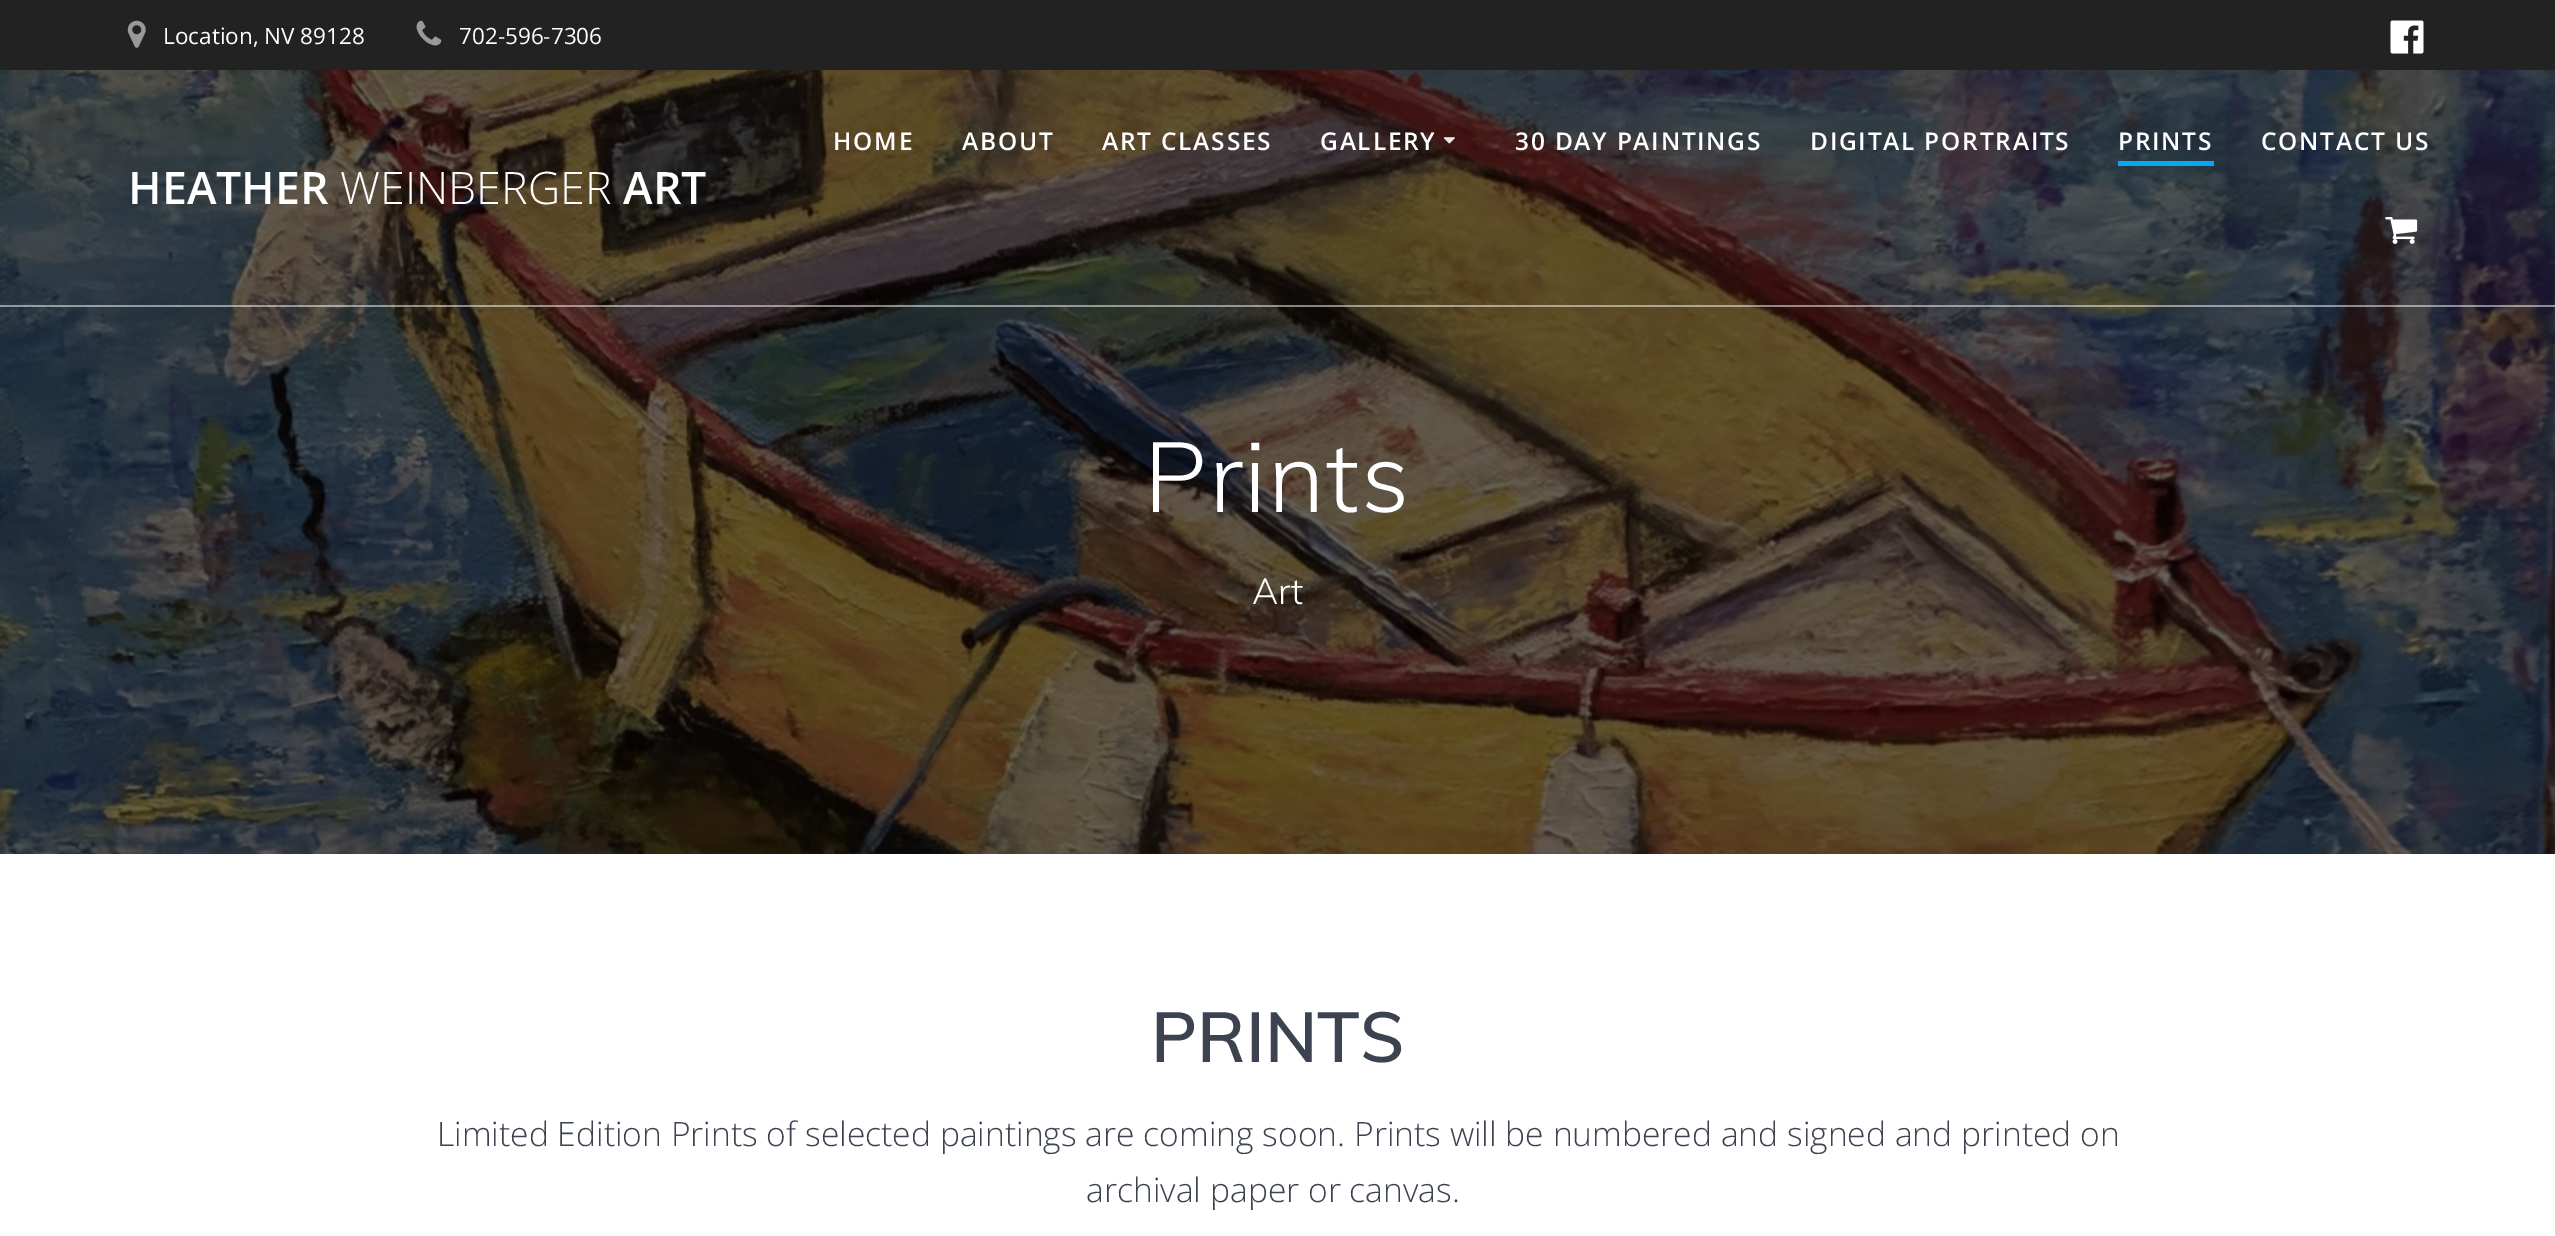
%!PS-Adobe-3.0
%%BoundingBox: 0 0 2555 1236
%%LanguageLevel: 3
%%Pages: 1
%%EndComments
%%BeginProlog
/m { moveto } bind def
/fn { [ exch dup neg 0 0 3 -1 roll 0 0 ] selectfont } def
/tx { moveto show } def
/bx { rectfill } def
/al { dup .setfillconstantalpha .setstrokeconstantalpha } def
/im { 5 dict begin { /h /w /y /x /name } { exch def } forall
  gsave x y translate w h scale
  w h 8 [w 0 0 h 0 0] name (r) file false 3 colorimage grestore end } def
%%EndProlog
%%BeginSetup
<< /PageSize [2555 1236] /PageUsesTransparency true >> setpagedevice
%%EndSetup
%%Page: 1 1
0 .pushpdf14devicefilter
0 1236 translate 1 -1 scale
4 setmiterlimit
0.165 0.18 0.341 setrgbcolor
0 0 2555 1236 bx
0.133 setgray
0 0 2555 70 bx
(image0.raw) 127 20 19 28 im
/OpenSans-Regular 22.5 fn
1 setgray
(Location, NV 89128) 163 44 tx
(image1.raw) 416 20 26 26 im
(702-596-7306) 459 44 tx
(image2.raw) 2390 20 34 34 im
(image5.raw) 0 70 2555 784 im
(image6.raw) 947 198 1374 503 im
0.5 al
0 305 2555 2 bx
/OpenSans-SemiBold 24.5 fn
1 al
833 150 m 1.75 0 (HOME) ashow
962 150 m 1.75 0 (ABOUT) ashow
1102 150 m 1.75 0 (ART CLASSES) ashow
1320 150 m 1.75 0 (GALLERY) ashow
(image3.raw) 1443 137 12 7 im
1515 150 m 1.75 0 (30 DAY PAINTINGS) ashow
1810 150 m 1.75 0 (DIGITAL PORTRAITS) ashow
0.012 0.663 0.957 setrgbcolor
2118 161 96 5 bx
1 setgray
2118 150 m 1.75 0 (PRINTS) ashow
2261 150 m 1.75 0 (CONTACT US) ashow
(image4.raw) 2385 217 33 27 im
/OpenSans-SemiBold 44.75 fn
(HEATHER) 128 204 tx
/OpenSans-Light 44.75 fn
(WEINBERGER) 340 204 tx
/OpenSans-SemiBold 44.75 fn
(ART) 623 204 tx
/Muli-Light 98 fn
1144 512 m 1.5 0 (Prints) ashow
/Muli-Light 36 fn
(Art) 1252 604 tx
0 854 2555 382 bx
/Muli-SemiBold 70 fn
0.235 0.259 0.31 setrgbcolor
(PRINTS) 1151 1062 tx
/OpenSans-Light 33.6 fn
(Limited Edition Prints of selected paintings are coming soon. Prints will be numbered and signed and printed on) 437 1146 tx
(archival paper or canvas.) 1086 1202 tx
.poppdf14devicefilter showpage
%%EOF
